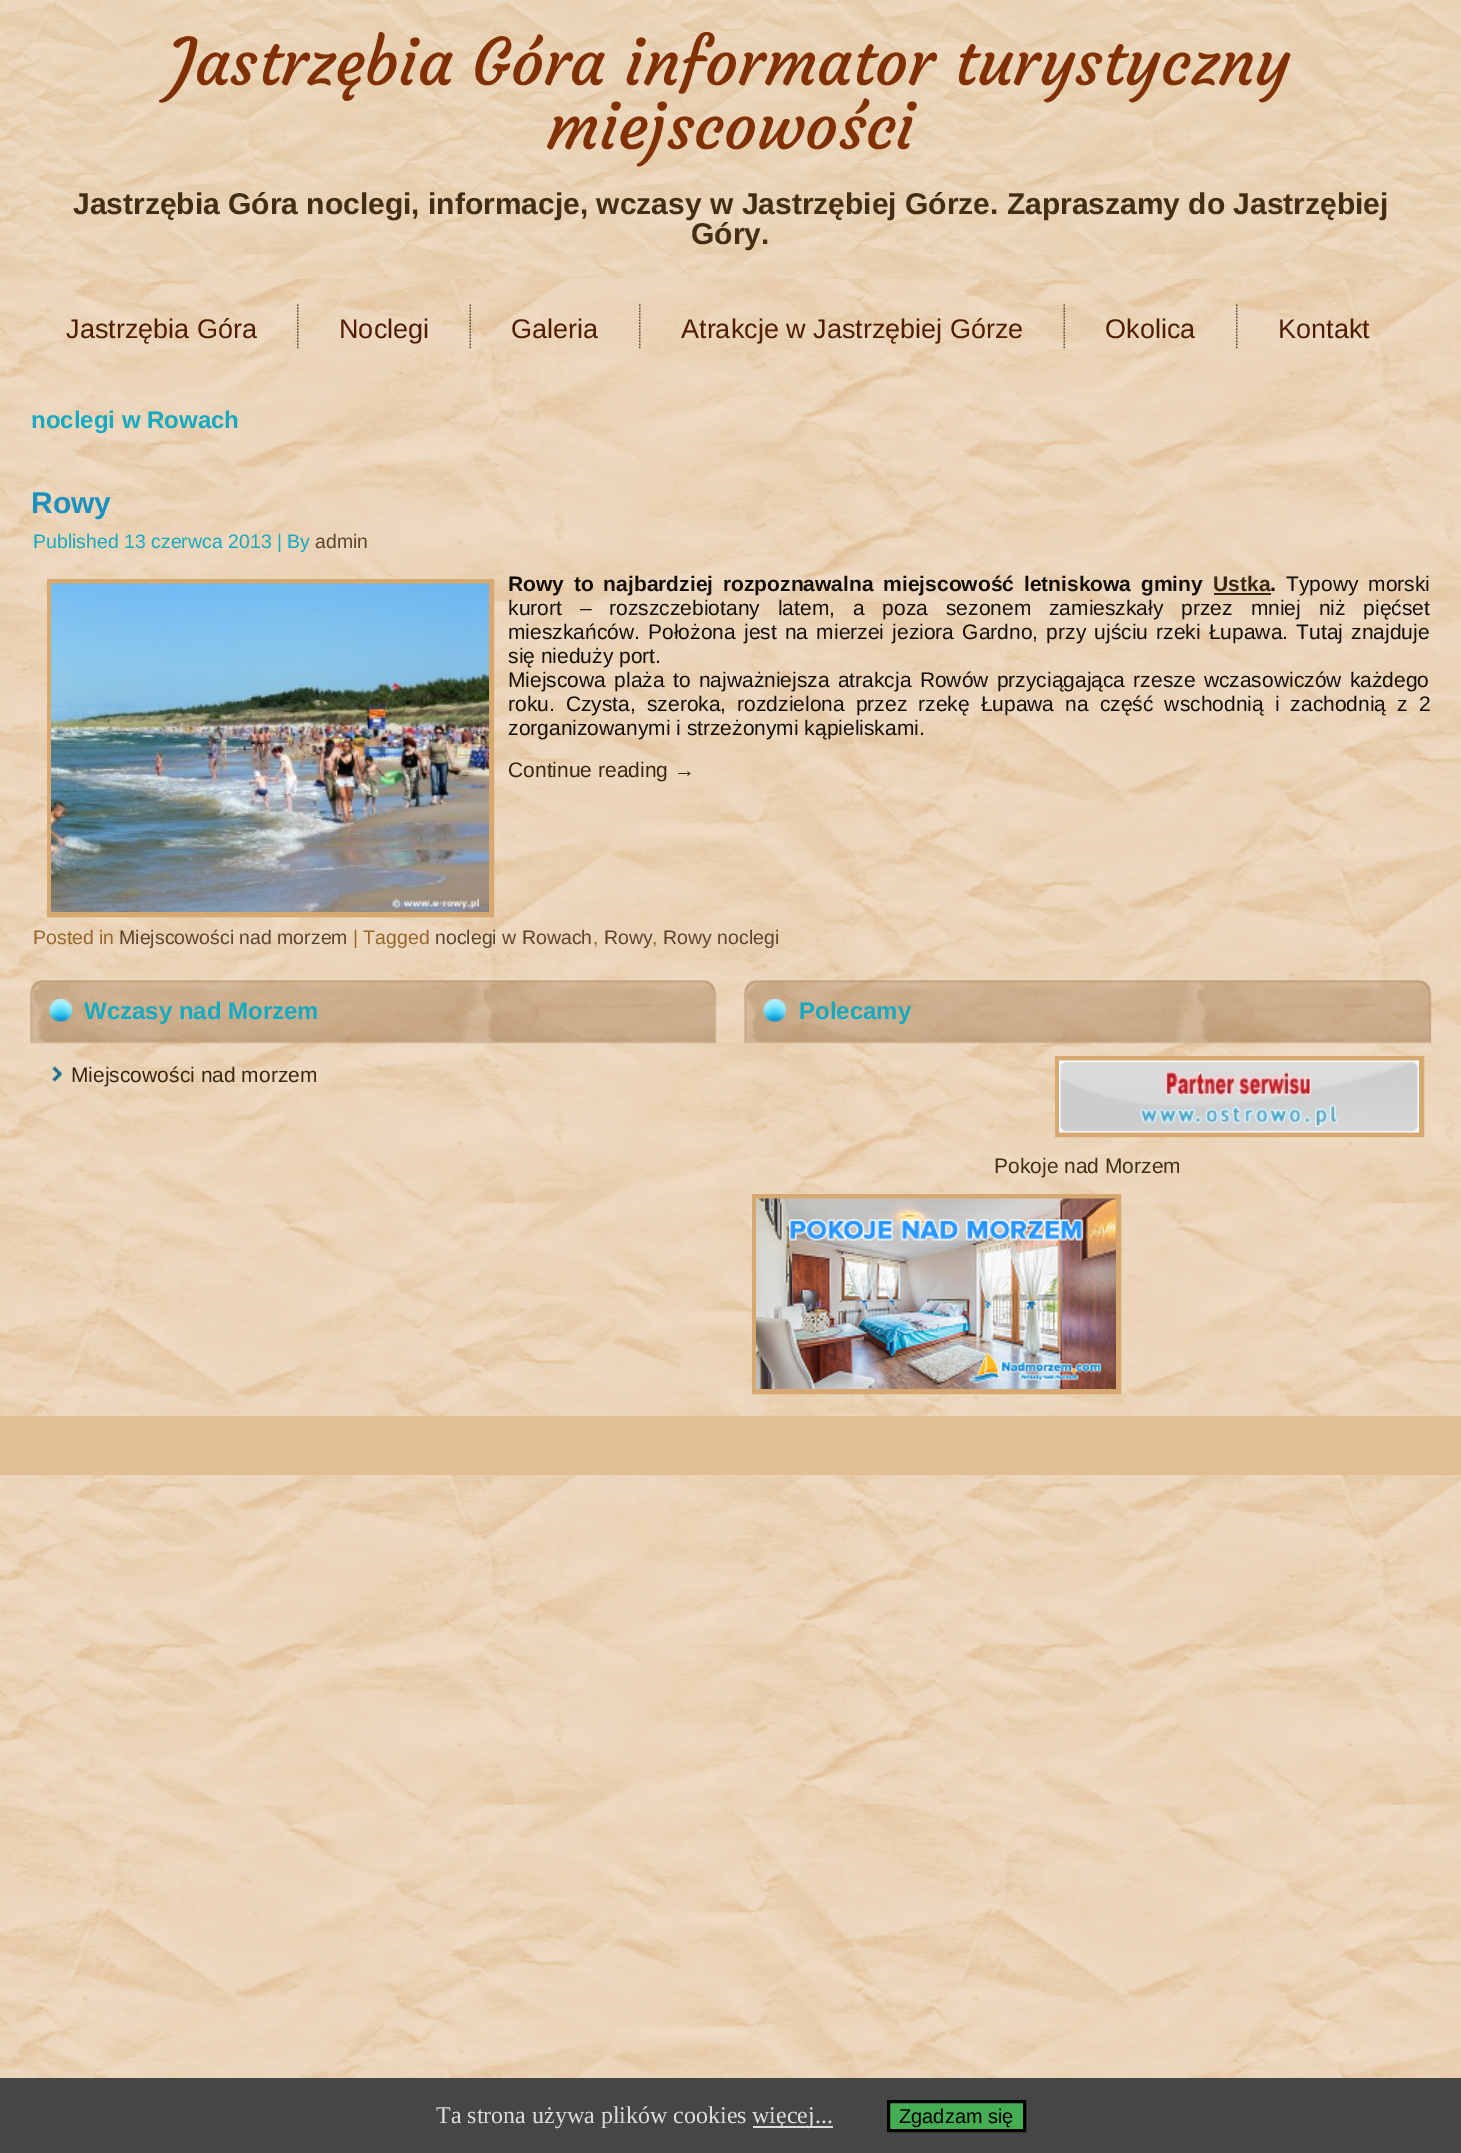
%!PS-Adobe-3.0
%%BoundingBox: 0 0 1461 2153
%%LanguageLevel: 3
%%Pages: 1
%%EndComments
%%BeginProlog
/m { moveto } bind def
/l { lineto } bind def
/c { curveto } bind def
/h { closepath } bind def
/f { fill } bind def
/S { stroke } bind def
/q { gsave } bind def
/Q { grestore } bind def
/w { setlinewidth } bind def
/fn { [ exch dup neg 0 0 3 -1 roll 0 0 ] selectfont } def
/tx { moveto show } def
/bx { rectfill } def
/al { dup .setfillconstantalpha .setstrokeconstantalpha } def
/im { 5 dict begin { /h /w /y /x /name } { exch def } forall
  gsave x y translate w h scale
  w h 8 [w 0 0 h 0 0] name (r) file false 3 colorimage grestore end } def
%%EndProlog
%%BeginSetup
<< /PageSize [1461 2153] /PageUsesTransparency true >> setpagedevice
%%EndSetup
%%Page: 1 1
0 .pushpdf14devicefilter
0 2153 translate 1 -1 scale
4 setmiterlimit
0.922 0.831 0.718 setrgbcolor
0 0 1461 2153 bx
(image0.raw) 0 279 1461 1799 im
(image1.raw) 0 0 1461 279 im
/Courgette-Regular 64.5 fn
0.506 0.188 0.016 setrgbcolor
(Jastrzębia Góra informator turystyczny) 170 85 tx
(miejscowości) 547 149 tx
/LiberationSans-Bold 30 fn
0.267 0.18 0.075 setrgbcolor
(Jastrzębia Góra noclegi, informacje, wczasy w Jastrzębiej Górze. Zapraszamy do Jastrzębiej) 73 214 tx
(Góry.) 691 244 tx
/LiberationSans-Regular 27 fn
0.31 0.114 0.008 setrgbcolor
(Jastrzębia Góra) 66 338 tx
(image2.raw) 297 304 2 45 im
(Noclegi) 339 338 tx
(image3.raw) 469 304 2 45 im
(Galeria) 511 338 tx
(image4.raw) 639 304 2 45 im
(Atrakcje w Jastrzębiej Górze) 681 338 tx
(image5.raw) 1063 304 2 45 im
(Okolica) 1105 338 tx
(image6.raw) 1236 304 2 45 im
(Kontakt) 1278 338 tx
/LiberationSans-Bold 24 fn
0.082 0.667 0.757 setrgbcolor
(noclegi w Rowach) 31 428 tx
/LiberationSans-Bold 30 fn
0.106 0.569 0.753 setrgbcolor
(Rowy) 31 513 tx
/LiberationSans-Regular 19.5 fn
0.082 0.667 0.757 setrgbcolor
(Published 13 czerwca 2013 | By) 33 548 tx
0.365 0.271 0.176 setrgbcolor
(admin) 315 548 tx
0.843 0.659 0.439 setrgbcolor
5 w
49.5 581.5 442 333 rectstroke
(image7.raw) 51 583 438 329 im
/LiberationSans-Bold 21 fn
0.078 0.051 0.024 setrgbcolor
508 591 m 4 0 32 (Rowy to najbardziej rozpoznawalna miejscowość letniskowa gminy) widthshow
0.22 0.149 0.063 setrgbcolor
(Ustka) 1213 591 tx
0.078 0.051 0.024 setrgbcolor
(.) 1270 591 tx
0.22 0.149 0.063 setrgbcolor
1214 593 57 2 bx
/LiberationSans-Regular 21 fn
0.078 0.051 0.024 setrgbcolor
1286 591 m 4 0 32 (Typowy morski) widthshow
508 615 m 12.1 0 32 (kurort – rozszczebiotany latem, a poza sezonem zamieszkały przez mniej niż pięćset) widthshow
508 639 m 2.4 0 32 (mieszkańców. Położona jest na mierzei jeziora Gardno, przy ujściu rzeki Łupawa. Tutaj znajduje) widthshow
(się nieduży port.) 508 663 tx
508 687 m 2.5 0 32 (Miejscowa plaża to najważniejsza atrakcja Rowów przyciągająca rzesze wczasowiczów każdego) widthshow
508 711 m 5.25 0 32 (roku. Czysta, szeroka, rozdzielona przez rzekę Łupawa na część wschodnią i zachodnią z 2) widthshow
(zorganizowanymi i strzeżonymi kąpieliskami.) 508 735 tx
0.22 0.149 0.063 setrgbcolor
(Continue reading →) 508 777 tx
/LiberationSans-Regular 19.5 fn
0.592 0.4 0.169 setrgbcolor
(Posted in) 33 944 tx
0.365 0.271 0.176 setrgbcolor
(Miejscowości nad morzem) 119 944 tx
0.592 0.4 0.169 setrgbcolor
(| Tagged) 353 944 tx
0.365 0.271 0.176 setrgbcolor
(noclegi w Rowach) 435 944 tx
0.592 0.4 0.169 setrgbcolor
(,) 593 944 tx
0.365 0.271 0.176 setrgbcolor
(Rowy) 604 944 tx
0.592 0.4 0.169 setrgbcolor
(,) 652 944 tx
0.365 0.271 0.176 setrgbcolor
(Rowy noclegi) 663 944 tx
(image8.raw) 30 980 686 63 im
0.3 al
0.608 0.451 0.294 setrgbcolor
2 w
44 981 m 702 981 l 709 981 715 987 715 994 c 715 1042 l 31 1042 l 31 994 l 31 987 37 981 44 981 c h S
1 al
(image9.raw) 49 999 23 23 im
/LiberationSans-Bold 24 fn
0.082 0.667 0.757 setrgbcolor
(Wczasy nad Morzem) 84 1019 tx
(image10.raw) 52 1066 10 16 im
/LiberationSans-Regular 21 fn
0.22 0.149 0.063 setrgbcolor
(Miejscowości nad morzem) 71 1082 tx
(image11.raw) 744 980 687 63 im
0.3 al
0.608 0.451 0.294 setrgbcolor
758 981 m 1417 981 l 1424 981 1430 987 1430 994 c 1430 1042 l 745 1042 l 745 994 l 745 987 751 981 758 981 c h S
1 al
(image12.raw) 763 999 23 23 im
/LiberationSans-Bold 24 fn
0.082 0.667 0.757 setrgbcolor
(Polecamy) 799 1019 tx
0.843 0.659 0.439 setrgbcolor
5 w
1057.5 1058.5 364 76 rectstroke
(image13.raw) 1059 1060 360 73 im
/LiberationSans-Regular 21 fn
0.267 0.18 0.075 setrgbcolor
(Pokoje nad Morzem) 994 1173 tx
0.843 0.659 0.439 setrgbcolor
754.5 1196.5 364 195 rectstroke
(image14.raw) 756 1198 360 191 im
0.882 0.745 0.58 setrgbcolor
0 1416 1461 59 bx
0.275 setgray
0 2078 1461 75 bx
/LiberationSerif-Regular 24 fn
0.867 setgray
(Ta strona używa plików cookies) 436 2123 tx
753 2126 80 2 bx
(więcej...) 752 2123 tx
0.271 0.682 0.322 setrgbcolor
888.5 2101.5 m 1024.5 2101.5 l 1024.5 2130.5 l 888.5 2130.5 l h q f Q
0 setgray
3 w
S
/LiberationSans-Regular 20 fn
(Zgadzam się) 899 2123 tx
.poppdf14devicefilter showpage
%%EOF
